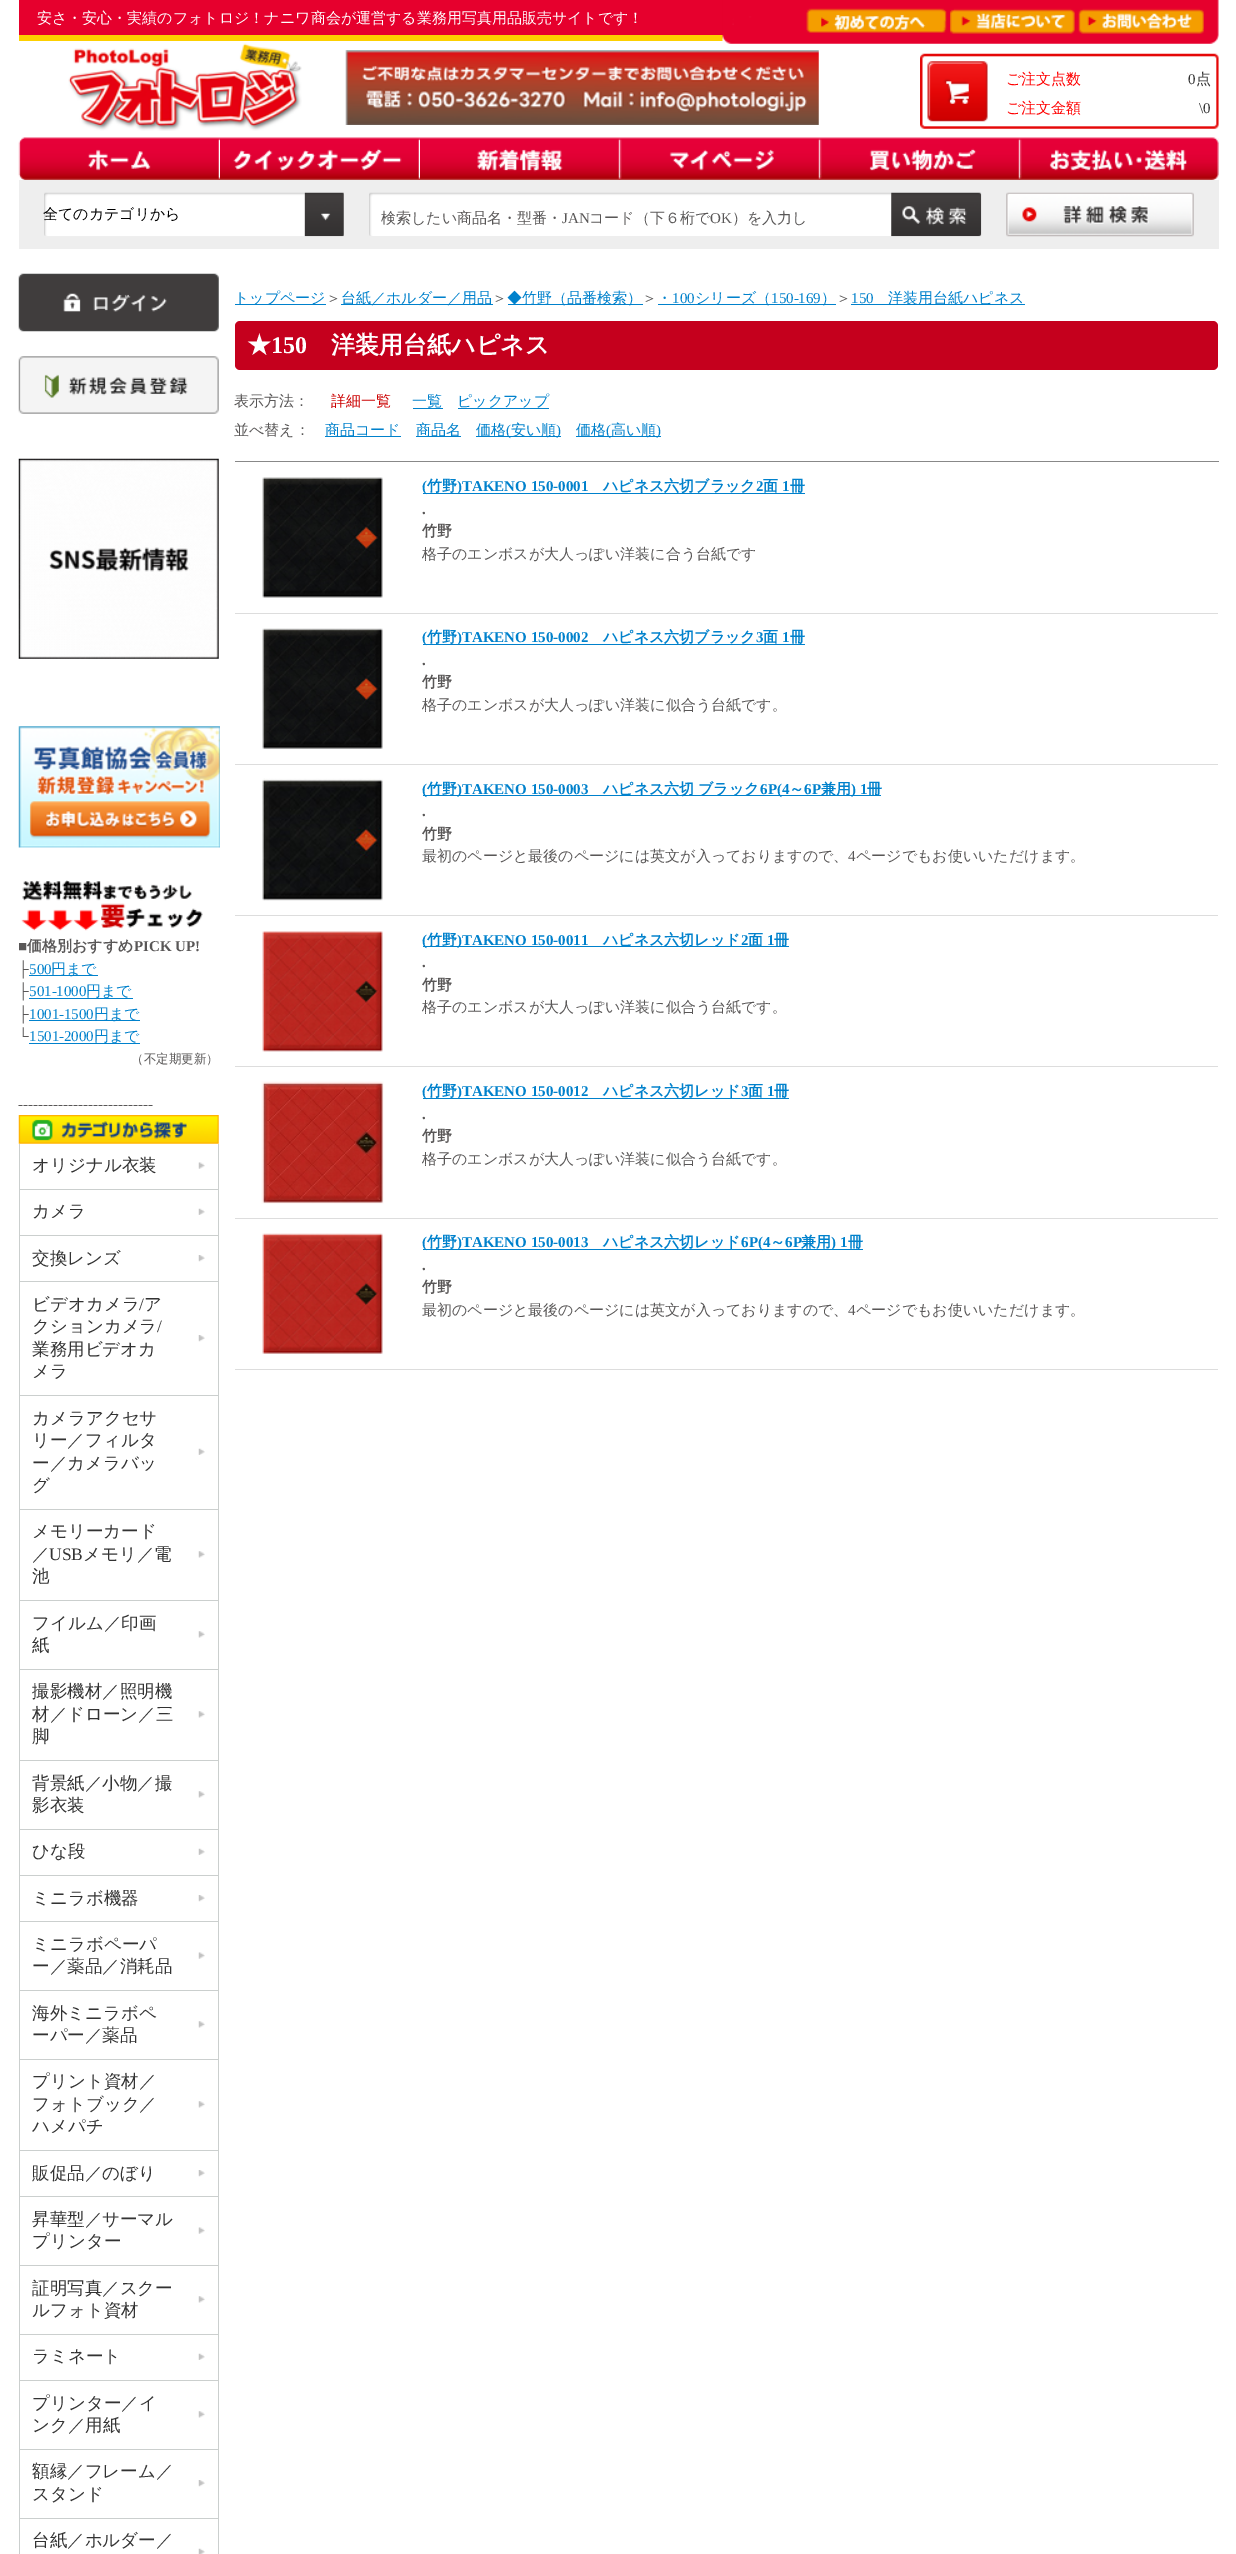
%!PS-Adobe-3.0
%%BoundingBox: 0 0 1236 2554
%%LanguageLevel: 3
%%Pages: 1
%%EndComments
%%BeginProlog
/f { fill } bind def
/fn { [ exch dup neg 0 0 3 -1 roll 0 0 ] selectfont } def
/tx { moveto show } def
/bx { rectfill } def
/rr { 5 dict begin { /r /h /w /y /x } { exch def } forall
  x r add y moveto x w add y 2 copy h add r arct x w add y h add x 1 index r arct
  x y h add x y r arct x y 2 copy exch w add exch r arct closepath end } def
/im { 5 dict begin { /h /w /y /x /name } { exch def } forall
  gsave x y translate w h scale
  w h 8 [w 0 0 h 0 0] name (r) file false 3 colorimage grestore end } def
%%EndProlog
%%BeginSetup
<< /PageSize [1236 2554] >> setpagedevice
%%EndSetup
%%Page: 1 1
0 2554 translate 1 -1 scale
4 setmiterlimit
1 setgray
0 0 1236 2554 bx
0.902 0 0.176 setrgbcolor
19 0 704 35 bx
0.992 0.816 0 setrgbcolor
19 35 704 6 bx
/WenQuanYiZenHei-Medium 15 fn
1 setgray
(安さ・安心・実績のフォトロジ！ナニワ商会が運営する業務用写真用品販売サイトです！) 37 23 tx
(image0.raw) 722 0 497 44 im
(image1.raw) 806 8 141 25 im
(image2.raw) 950 8 125 26 im
(image3.raw) 1078 8 126 26 im
(image4.raw) 68 43 234 88 im
(image5.raw) 345 50 474 75 im
(image6.raw) 920 53 299 76 im
(image7.raw) 927 61 61 61 im
1 0 0 setrgbcolor
(ご注文点数) 1006 84 tx
/LiberationSerif-Regular 15 fn
0.2 setgray
(0) 1188 84 tx
/WenQuanYiZenHei-Medium 15 fn
(点) 1196 84 tx
1 0 0 setrgbcolor
(ご注文金額) 1006 113 tx
/LiberationSerif-Regular 15 fn
0.2 setgray
(\\0) 1199 113 tx
0.933 setgray
19 138 1200 111 bx
(image8.raw) 18 137 202 43 im
(image9.raw) 220 137 200 43 im
(image10.raw) 420 137 200 43 im
(image11.raw) 620 137 200 43 im
(image12.raw) 820 137 200 43 im
(image13.raw) 1020 137 199 43 im
(image14.raw) 44 192 300 45 im
/WenQuanYiZenHei-Medium 15 fn
0 setgray
(全てのカテゴリから) 43 219 tx
(image15.raw) 369 192 523 44 im
(image16.raw) 891 192 91 45 im
0.349 0.341 0.341 setrgbcolor
(検索したい商品名・型番・) 381 223 tx
/LiberationSerif-Regular 15 fn
(JAN) 562 223 tx
/WenQuanYiZenHei-Medium 15 fn
(コード（下６桁で) 589 223 tx
/LiberationSerif-Regular 15 fn
(OK) 710 223 tx
/WenQuanYiZenHei-Medium 15 fn
(）を入力し) 732 223 tx
(image17.raw) 1006 192 188 45 im
0 0.506 0.8 setrgbcolor
235 304 91 1 bx
(トップページ) 234 303 tx
0.349 0.341 0.341 setrgbcolor
(＞) 326 303 tx
0 0.506 0.8 setrgbcolor
341 304 152 1 bx
(台紙／ホルダー／用品) 341 303 tx
0.349 0.341 0.341 setrgbcolor
(＞) 492 303 tx
0 0.506 0.8 setrgbcolor
508 304 135 1 bx
(◆竹野（品番検索）) 507 303 tx
0.349 0.341 0.341 setrgbcolor
(＞) 642 303 tx
0 0.506 0.8 setrgbcolor
(・) 657 303 tx
/LiberationSerif-Regular 15 fn
(100) 672 303 tx
658 304 178 1 bx
/WenQuanYiZenHei-Medium 15 fn
(シリーズ（) 695 303 tx
/LiberationSerif-Regular 15 fn
(150-169) 771 303 tx
/WenQuanYiZenHei-Medium 15 fn
(）) 821 303 tx
0.349 0.341 0.341 setrgbcolor
(＞) 836 303 tx
/LiberationSerif-Regular 15 fn
0 0.506 0.8 setrgbcolor
(150) 851 303 tx
851 304 174 1 bx
/WenQuanYiZenHei-Medium 15 fn
(洋装用台紙ハピネス) 888 303 tx
0.773 0 0.114 setrgbcolor
235 321 983 49 5 rr f
/WenQuanYiZenHei-Bold 24 fn
1 setgray
(★) 247 353 tx
/LiberationSerif-Bold 24 fn
(150) 271 353 tx
/WenQuanYiZenHei-Bold 24 fn
(洋装用台紙ハピネス) 331 353 tx
/WenQuanYiZenHei-Medium 15 fn
0.349 0.341 0.341 setrgbcolor
(表示方法：) 234 406 tx
0.8 0 0 setrgbcolor
(詳細一覧) 331 406 tx
0 0.506 0.8 setrgbcolor
(一覧) 412 406 tx
413 408 30 1 bx
(ピックアップ) 457 406 tx
458 408 91 1 bx
0.349 0.341 0.341 setrgbcolor
(並べ替え：) 234 435 tx
0 0.506 0.8 setrgbcolor
325 436 76 1 bx
(商品コード) 325 435 tx
416 436 45 1 bx
(商品名) 416 435 tx
476 436 85 1 bx
(価格) 476 435 tx
/LiberationSerif-Regular 15 fn
(\() 506 435 tx
/WenQuanYiZenHei-Medium 15 fn
(安い順) 511 435 tx
/LiberationSerif-Regular 15 fn
(\)) 556 435 tx
576 436 85 1 bx
/WenQuanYiZenHei-Medium 15 fn
(価格) 576 435 tx
/LiberationSerif-Regular 15 fn
(\() 606 435 tx
/WenQuanYiZenHei-Medium 15 fn
(高い順) 611 435 tx
/LiberationSerif-Regular 15 fn
(\)) 656 435 tx
0.533 setgray
235 461 984 1 bx
0.867 setgray
235 613 983 1 bx
(image18.raw) 262 477 121 121 im
0 0.506 0.8 setrgbcolor
423 493 382 1 bx
/LiberationSerif-Bold 15 fn
(\() 422 491 tx
/WenQuanYiZenHei-Bold 15 fn
(竹野) 427 491 tx
/LiberationSerif-Bold 15 fn
(\)TAKENO 150-0001) 457 491 tx
/WenQuanYiZenHei-Bold 15 fn
(ハピネス六切ブラック) 603 491 tx
/LiberationSerif-Bold 15 fn
(2) 756 491 tx
/WenQuanYiZenHei-Bold 15 fn
(面) 763 491 tx
/LiberationSerif-Bold 15 fn
(1) 782 491 tx
/WenQuanYiZenHei-Bold 15 fn
(冊) 790 491 tx
/LiberationSerif-Bold 15 fn
0.349 0.341 0.341 setrgbcolor
(.) 422 514 tx
/WenQuanYiZenHei-Bold 15 fn
(竹野) 422 536 tx
/WenQuanYiZenHei-Medium 15 fn
(格子のエンボスが大人っぽい洋装に合う台紙です) 422 559 tx
0.867 setgray
235 764 983 1 bx
(image19.raw) 262 628 121 121 im
0 0.506 0.8 setrgbcolor
423 644 382 1 bx
/LiberationSerif-Bold 15 fn
(\() 422 642 tx
/WenQuanYiZenHei-Bold 15 fn
(竹野) 427 642 tx
/LiberationSerif-Bold 15 fn
(\)TAKENO 150-0002) 457 642 tx
/WenQuanYiZenHei-Bold 15 fn
(ハピネス六切ブラック) 603 642 tx
/LiberationSerif-Bold 15 fn
(3) 756 642 tx
/WenQuanYiZenHei-Bold 15 fn
(面) 763 642 tx
/LiberationSerif-Bold 15 fn
(1) 782 642 tx
/WenQuanYiZenHei-Bold 15 fn
(冊) 790 642 tx
/LiberationSerif-Bold 15 fn
0.349 0.341 0.341 setrgbcolor
(.) 422 665 tx
/WenQuanYiZenHei-Bold 15 fn
(竹野) 422 687 tx
/WenQuanYiZenHei-Medium 15 fn
(格子のエンボスが大人っぽい洋装に似合う台紙です。) 422 710 tx
0.867 setgray
235 915 983 1 bx
(image20.raw) 262 778 121 123 im
0 0.506 0.8 setrgbcolor
423 795 458 1 bx
/LiberationSerif-Bold 15 fn
(\() 422 794 tx
/WenQuanYiZenHei-Bold 15 fn
(竹野) 427 794 tx
/LiberationSerif-Bold 15 fn
(\)TAKENO 150-0003) 457 794 tx
/WenQuanYiZenHei-Bold 15 fn
(ハピネス六切) 603 794 tx
(ブラック) 698 794 tx
/LiberationSerif-Bold 15 fn
(6P\(4) 760 794 tx
/WenQuanYiZenHei-Bold 15 fn
(～) 789 794 tx
/LiberationSerif-Bold 15 fn
(6P) 804 794 tx
/WenQuanYiZenHei-Bold 15 fn
(兼用) 821 794 tx
/LiberationSerif-Bold 15 fn
(\) 1) 851 794 tx
/WenQuanYiZenHei-Bold 15 fn
(冊) 867 794 tx
/LiberationSerif-Bold 15 fn
0.349 0.341 0.341 setrgbcolor
(.) 422 816 tx
/WenQuanYiZenHei-Bold 15 fn
(竹野) 422 839 tx
/WenQuanYiZenHei-Medium 15 fn
(最初のページと最後のページには英文が入っておりますので、) 422 861 tx
/LiberationSerif-Regular 15 fn
(4) 848 861 tx
/WenQuanYiZenHei-Medium 15 fn
(ページでもお使いいただけます。) 856 861 tx
0.867 setgray
235 1066 983 1 bx
(image21.raw) 262 931 121 121 im
0 0.506 0.8 setrgbcolor
423 946 366 1 bx
/LiberationSerif-Bold 15 fn
(\() 422 945 tx
/WenQuanYiZenHei-Bold 15 fn
(竹野) 427 945 tx
/LiberationSerif-Bold 15 fn
(\)TAKENO 150-0011) 457 945 tx
/WenQuanYiZenHei-Bold 15 fn
(ハピネス六切レッド) 603 945 tx
/LiberationSerif-Bold 15 fn
(2) 741 945 tx
/WenQuanYiZenHei-Bold 15 fn
(面) 748 945 tx
/LiberationSerif-Bold 15 fn
(1) 767 945 tx
/WenQuanYiZenHei-Bold 15 fn
(冊) 774 945 tx
/LiberationSerif-Bold 15 fn
0.349 0.341 0.341 setrgbcolor
(.) 422 967 tx
/WenQuanYiZenHei-Bold 15 fn
(竹野) 422 990 tx
/WenQuanYiZenHei-Medium 15 fn
(格子のエンボスが大人っぽい洋装に似合う台紙です。) 422 1012 tx
0.867 setgray
235 1218 983 1 bx
(image22.raw) 261 1081 123 123 im
0 0.506 0.8 setrgbcolor
423 1098 366 1 bx
/LiberationSerif-Bold 15 fn
(\() 422 1096 tx
/WenQuanYiZenHei-Bold 15 fn
(竹野) 427 1096 tx
/LiberationSerif-Bold 15 fn
(\)TAKENO 150-0012) 457 1096 tx
/WenQuanYiZenHei-Bold 15 fn
(ハピネス六切レッド) 603 1096 tx
/LiberationSerif-Bold 15 fn
(3) 741 1096 tx
/WenQuanYiZenHei-Bold 15 fn
(面) 748 1096 tx
/LiberationSerif-Bold 15 fn
(1) 767 1096 tx
/WenQuanYiZenHei-Bold 15 fn
(冊) 774 1096 tx
/LiberationSerif-Bold 15 fn
0.349 0.341 0.341 setrgbcolor
(.) 422 1119 tx
/WenQuanYiZenHei-Bold 15 fn
(竹野) 422 1141 tx
/WenQuanYiZenHei-Medium 15 fn
(格子のエンボスが大人っぽい洋装に似合う台紙です。) 422 1164 tx
0.867 setgray
235 1369 983 1 bx
(image23.raw) 262 1233 121 121 im
0 0.506 0.8 setrgbcolor
423 1249 440 1 bx
/LiberationSerif-Bold 15 fn
(\() 422 1247 tx
/WenQuanYiZenHei-Bold 15 fn
(竹野) 427 1247 tx
/LiberationSerif-Bold 15 fn
(\)TAKENO 150-0013) 457 1247 tx
/WenQuanYiZenHei-Bold 15 fn
(ハピネス六切レッド) 603 1247 tx
/LiberationSerif-Bold 15 fn
(6P\(4) 741 1247 tx
/WenQuanYiZenHei-Bold 15 fn
(～) 770 1247 tx
/LiberationSerif-Bold 15 fn
(6P) 785 1247 tx
/WenQuanYiZenHei-Bold 15 fn
(兼用) 801 1247 tx
/LiberationSerif-Bold 15 fn
(\) 1) 831 1247 tx
/WenQuanYiZenHei-Bold 15 fn
(冊) 848 1247 tx
/LiberationSerif-Bold 15 fn
0.349 0.341 0.341 setrgbcolor
(.) 422 1270 tx
/WenQuanYiZenHei-Bold 15 fn
(竹野) 422 1292 tx
/WenQuanYiZenHei-Medium 15 fn
(最初のページと最後のページには英文が入っておりますので、) 422 1315 tx
/LiberationSerif-Regular 15 fn
(4) 848 1315 tx
/WenQuanYiZenHei-Medium 15 fn
(ページでもお使いいただけます。) 856 1315 tx
(image24.raw) 18 273 201 59 im
(image25.raw) 18 356 201 58 im
(image26.raw) 18 458 201 201 im
(image27.raw) 18 726 202 122 im
(image28.raw) 21 880 182 51 im
/LiberationSerif-Bold 15 fn
(■) 18 951 tx
/WenQuanYiZenHei-Bold 15 fn
(価格別おすすめ) 27 951 tx
/LiberationSerif-Bold 15 fn
(PICK UP!) 134 951 tx
/LiberationSerif-Regular 15 fn
(├) 18 974 tx
0 0.506 0.8 setrgbcolor
(500) 29 974 tx
29 975 69 1 bx
/WenQuanYiZenHei-Medium 15 fn
(円まで) 51 974 tx
/LiberationSerif-Regular 15 fn
0.349 0.341 0.341 setrgbcolor
(├) 18 996 tx
0 0.506 0.8 setrgbcolor
(501-1000) 29 996 tx
29 998 104 1 bx
/WenQuanYiZenHei-Medium 15 fn
(円まで) 86 996 tx
/LiberationSerif-Regular 15 fn
0.349 0.341 0.341 setrgbcolor
(├) 18 1019 tx
0 0.506 0.8 setrgbcolor
(1001-1500) 29 1019 tx
29 1020 111 1 bx
/WenQuanYiZenHei-Medium 15 fn
(円まで) 94 1019 tx
/LiberationSerif-Regular 15 fn
0.349 0.341 0.341 setrgbcolor
(└) 18 1041 tx
0 0.506 0.8 setrgbcolor
(1501-2000) 29 1041 tx
29 1043 111 1 bx
/WenQuanYiZenHei-Medium 15 fn
(円まで) 94 1041 tx
/WenQuanYiZenHei-Medium 12.5 fn
0.349 0.341 0.341 setrgbcolor
(（不定期更新）) 131 1063 tx
/LiberationSerif-Regular 15 fn
(---------------------------) 18 1109 tx
(image29.raw) 18 1115 201 29 im
0.796 0.812 0.808 setrgbcolor
218 1144 1 1410 bx
19 1144 1 1410 bx
20 1189 198 1 bx
(image30.raw) 198 1162 7 7 im
/WenQuanYiZenHei-Medium 17.5 fn
0.2 setgray
(オリジナル衣装) 32 1171 tx
0.796 0.812 0.808 setrgbcolor
20 1235 198 1 bx
(image31.raw) 198 1208 7 7 im
0.2 setgray
(カメラ) 32 1217 tx
0.796 0.812 0.808 setrgbcolor
20 1281 198 1 bx
(image32.raw) 198 1255 7 7 im
0.2 setgray
(交換レンズ) 32 1264 tx
0.796 0.812 0.808 setrgbcolor
20 1395 198 1 bx
(image32.raw) 198 1335 7 7 im
0.2 setgray
(ビデオカメラ) 32 1310 tx
/LiberationSerif-Regular 17.5 fn
(/) 139 1310 tx
/WenQuanYiZenHei-Medium 17.5 fn
(ア) 144 1310 tx
(クションカメラ) 32 1332 tx
/LiberationSerif-Regular 17.5 fn
(/) 157 1332 tx
/WenQuanYiZenHei-Medium 17.5 fn
(業務用ビデオカ) 32 1355 tx
(メラ) 32 1377 tx
0.796 0.812 0.808 setrgbcolor
20 1509 198 1 bx
(image31.raw) 198 1448 7 7 im
0.2 setgray
(カメラアクセサ) 32 1424 tx
(リー／フィルタ) 32 1446 tx
(ー／カメラバッ) 32 1469 tx
(グ) 32 1491 tx
0.796 0.812 0.808 setrgbcolor
20 1600 198 1 bx
(image33.raw) 198 1551 7 7 im
0.2 setgray
(メモリーカード) 32 1537 tx
(／) 32 1560 tx
/LiberationSerif-Regular 17.5 fn
(USB) 49 1560 tx
/WenQuanYiZenHei-Medium 17.5 fn
(メモリ／電) 83 1560 tx
(池) 32 1582 tx
0.796 0.812 0.808 setrgbcolor
20 1669 198 1 bx
(image33.raw) 198 1631 7 7 im
0.2 setgray
(フイルム／印画) 32 1629 tx
(紙) 32 1651 tx
0.796 0.812 0.808 setrgbcolor
20 1760 198 1 bx
(image33.raw) 198 1711 7 7 im
0.2 setgray
(撮影機材／照明機) 32 1697 tx
(材／ドローン／三) 32 1720 tx
(脚) 32 1742 tx
0.796 0.812 0.808 setrgbcolor
20 1829 198 1 bx
(image33.raw) 198 1791 7 7 im
0.2 setgray
(背景紙／小物／撮) 32 1789 tx
(影衣装) 32 1811 tx
0.796 0.812 0.808 setrgbcolor
20 1875 198 1 bx
(image31.raw) 198 1848 7 7 im
0.2 setgray
(ひな段) 32 1857 tx
0.796 0.812 0.808 setrgbcolor
20 1921 198 1 bx
(image32.raw) 198 1895 7 7 im
0.2 setgray
(ミニラボ機器) 32 1904 tx
0.796 0.812 0.808 setrgbcolor
20 1990 198 1 bx
(image30.raw) 198 1952 7 7 im
0.2 setgray
(ミニラボペーパ) 32 1950 tx
(ー／薬品／消耗品) 32 1972 tx
0.796 0.812 0.808 setrgbcolor
20 2059 198 1 bx
(image33.raw) 198 2021 7 7 im
0.2 setgray
(海外ミニラボペ) 32 2019 tx
(ーパー／薬品) 32 2041 tx
0.796 0.812 0.808 setrgbcolor
20 2150 198 1 bx
(image33.raw) 198 2101 7 7 im
0.2 setgray
(プリント資材／) 32 2087 tx
(フォトブック／) 32 2110 tx
(ハメパチ) 32 2132 tx
0.796 0.812 0.808 setrgbcolor
20 2196 198 1 bx
(image32.raw) 198 2170 7 7 im
0.2 setgray
(販促品／のぼり) 32 2179 tx
0.796 0.812 0.808 setrgbcolor
20 2265 198 1 bx
(image30.raw) 198 2227 7 7 im
0.2 setgray
(昇華型／サーマル) 32 2225 tx
(プリンター) 32 2247 tx
0.796 0.812 0.808 setrgbcolor
20 2334 198 1 bx
(image33.raw) 198 2296 7 7 im
0.2 setgray
(証明写真／スクー) 32 2294 tx
(ルフォト資材) 32 2316 tx
0.796 0.812 0.808 setrgbcolor
20 2380 198 1 bx
(image31.raw) 198 2353 7 7 im
0.2 setgray
(ラミネート) 32 2362 tx
0.796 0.812 0.808 setrgbcolor
20 2449 198 1 bx
(image33.raw) 198 2411 7 7 im
0.2 setgray
(プリンター／イ) 32 2409 tx
(ンク／用紙) 32 2431 tx
0.796 0.812 0.808 setrgbcolor
20 2518 198 1 bx
(image32.raw) 198 2480 7 7 im
0.2 setgray
(額縁／フレーム／) 32 2477 tx
(スタンド) 32 2500 tx
(image34.raw) 198 2548 7 6 im
(台紙／ホルダー／) 32 2546 tx
showpage
%%EOF
